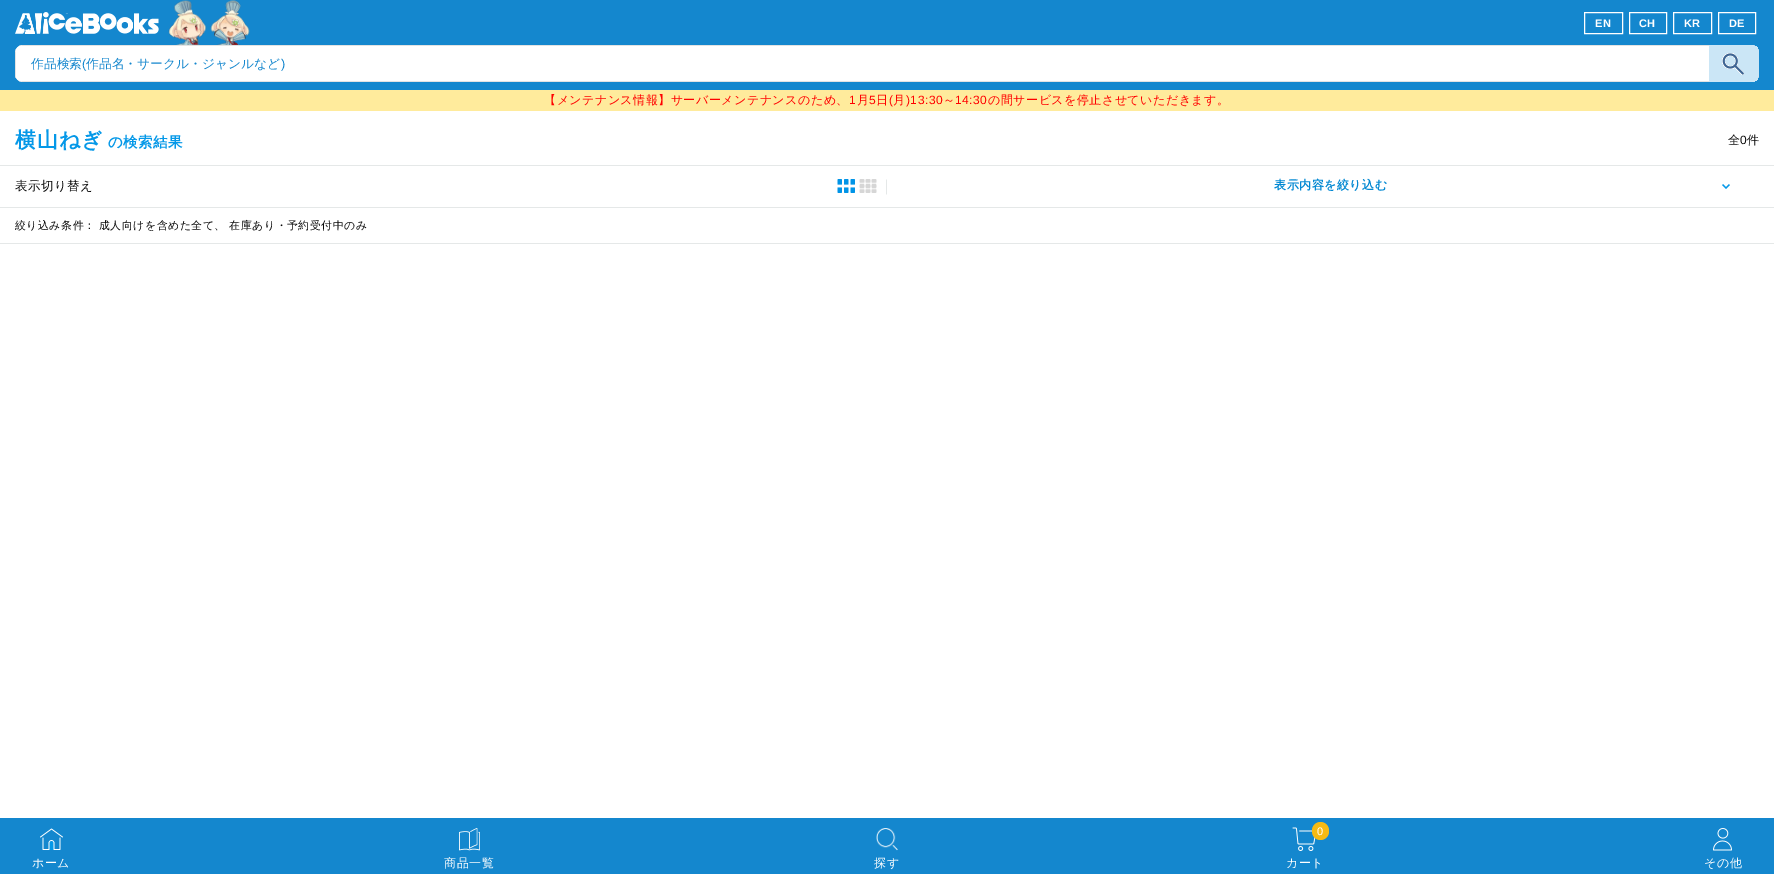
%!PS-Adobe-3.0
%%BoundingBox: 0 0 1774 874
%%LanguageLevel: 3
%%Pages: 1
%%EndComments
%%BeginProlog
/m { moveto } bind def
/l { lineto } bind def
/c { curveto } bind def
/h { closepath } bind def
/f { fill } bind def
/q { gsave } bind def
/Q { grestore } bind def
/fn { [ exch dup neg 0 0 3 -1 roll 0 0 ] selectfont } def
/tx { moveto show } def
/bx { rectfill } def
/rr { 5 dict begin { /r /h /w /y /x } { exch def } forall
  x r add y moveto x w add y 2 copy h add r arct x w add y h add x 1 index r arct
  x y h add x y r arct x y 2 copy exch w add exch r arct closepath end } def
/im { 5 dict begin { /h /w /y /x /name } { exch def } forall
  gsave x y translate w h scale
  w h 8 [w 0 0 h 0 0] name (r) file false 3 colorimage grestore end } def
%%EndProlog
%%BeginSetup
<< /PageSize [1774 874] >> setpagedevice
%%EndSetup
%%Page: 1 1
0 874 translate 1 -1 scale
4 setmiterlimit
1 setgray
0 0 1774 874 bx
0.078 0.529 0.808 setrgbcolor
0 0 1774 90 bx
(image0.raw) 66 0 184 45 im
(image1.raw) 15 12 144 22 im
1 setgray
1584.5 12.5 38 21 rectstroke
/LiberationSans-Bold 11 fn
1595 27 m 0.5 0 (EN) ashow
1629.5 12.5 37 21 rectstroke
1639 27 m 0.5 0 (CH) ashow
1673.5 12.5 38 21 rectstroke
1684 27 m 0.5 0 (KR) ashow
1718.5 12.5 37 21 rectstroke
1729 27 m 0.5 0 (DE) ashow
15 45 1744 37 8 rr f
0.89 setgray
15 53 m 15 74 l 15 75 15 77 16 78 c 16 49 l h 23 45 m 19 46 l 1755 46 l 1751 45 l h 1759 53 m 1758 49 l 1758 78 l 1759 77 1759 75 1759 74 c h 1751 82 m 1755 81 l 19 81 l 23 82 l h eofill
/WenQuanYiZenHei-Medium 12.75 fn
0.078 0.529 0.808 setrgbcolor
(作品検索) 31 68 tx
/LiberationSans-Regular 12.75 fn
(\() 82 68 tx
/WenQuanYiZenHei-Medium 12.75 fn
(作品名・サークル・ジャンルなど) 86 68 tx
/LiberationSans-Regular 12.75 fn
(\)) 281 68 tx
0.796 0.902 0.965 setrgbcolor
1759 74 m 1759 53 l 1759 52 1759 50 1758 49 c 1758 78 l h 1709 45 m 1751 45 l 1752 45 1754 45 1755 46 c 1710 46 l 1710 82 l 1709 82 l h eofill
q
15 45 1744 37 8 rr clip newpath
1710 46 48 36 bx
Q
(image2.raw) 1722 53 22 22 im
1 0.922 0.612 setrgbcolor
0 90 1774 21 bx
/WenQuanYiZenHei-Medium 12 fn
1 0 0 setrgbcolor
544 104 m 0.5 0 (【メンテナンス情報】サーバーメンテナンスのため、) ashow
/LiberationSans-Regular 12 fn
849 104 m 0.5 0 (1) ashow
/WenQuanYiZenHei-Medium 12 fn
857 104 m 0.5 0 (月) ashow
/LiberationSans-Regular 12 fn
869 104 m 0.5 0 (5) ashow
/WenQuanYiZenHei-Medium 12 fn
876 104 m 0.5 0 (日) ashow
/LiberationSans-Regular 12 fn
889 104 m 0.5 0 (\() ashow
/WenQuanYiZenHei-Medium 12 fn
893 104 m 0.5 0 (月) ashow
/LiberationSans-Regular 12 fn
906 104 m 0.5 0 (\)13:30) ashow
/WenQuanYiZenHei-Medium 12 fn
943 104 m 0.5 0 (～) ashow
/LiberationSans-Regular 12 fn
955 104 m 0.5 0 (14:30) ashow
/WenQuanYiZenHei-Medium 12 fn
988 104 m 0.5 0 (の間サービスを停止させていただきます。) ashow
0.898 0.91 0.91 setrgbcolor
0 165 1774 1 bx
/WenQuanYiZenHei-Bold 21 fn
0.016 0.596 0.91 setrgbcolor
15 147 m 1 0 (横山ねぎ) ashow
/WenQuanYiZenHei-Bold 14.5 fn
108 147 m 0.5 0 (の検索結果) ashow
/WenQuanYiZenHei-Medium 12 fn
0.039 setgray
(全) 1728 144 tx
/LiberationSans-Regular 12 fn
(0) 1740 144 tx
/WenQuanYiZenHei-Medium 12 fn
(件) 1747 144 tx
(image3.raw) 886 179 1 16 im
/WenQuanYiZenHei-Medium 12.5 fn
15 190 m 0.5 0 (表示切り替え) ashow
(image4.raw) 837 179 18 14 im
(image5.raw) 859 179 18 14 im
(image6.raw) 1722 184 8 5 im
/WenQuanYiZenHei-Bold 12 fn
0.012 0.537 0.827 setrgbcolor
1274 189 m 0.5 0 (表示内容を絞り込む) ashow
0.898 0.91 0.91 setrgbcolor
0 207 1774 1 bx
0 243 1774 1 bx
/WenQuanYiZenHei-Medium 10.9 fn
0.039 setgray
15 229 m 0.5 0 (絞り込み条件： 成人向けを含めた全て、 在庫あり・予約受付中のみ) ashow
0.078 0.529 0.808 setrgbcolor
0 818 1774 56 bx
(image7.raw) 40 828 23 22 im
/WenQuanYiZenHei-Medium 12 fn
1 setgray
32 867 m 0.5 0 (ホーム) ashow
(image8.raw) 459 828 21 23 im
444 867 m 0.5 0 (商品一覧) ashow
(image9.raw) 876 828 22 23 im
874 867 m 0.5 0 (探す) ashow
(image10.raw) 1292 827 24 24 im
0.961 0.729 0.078 setrgbcolor
1312 822 17 18 8.5 rr f
/LiberationSans-Regular 11 fn
1 setgray
1317 835 m 0.5 0 (0) ashow
/WenQuanYiZenHei-Medium 12 fn
1286 867 m 0.5 0 (カート) ashow
(image11.raw) 1713 828 19 23 im
1704 867 m 0.5 0 (その他) ashow
showpage
%%EOF
